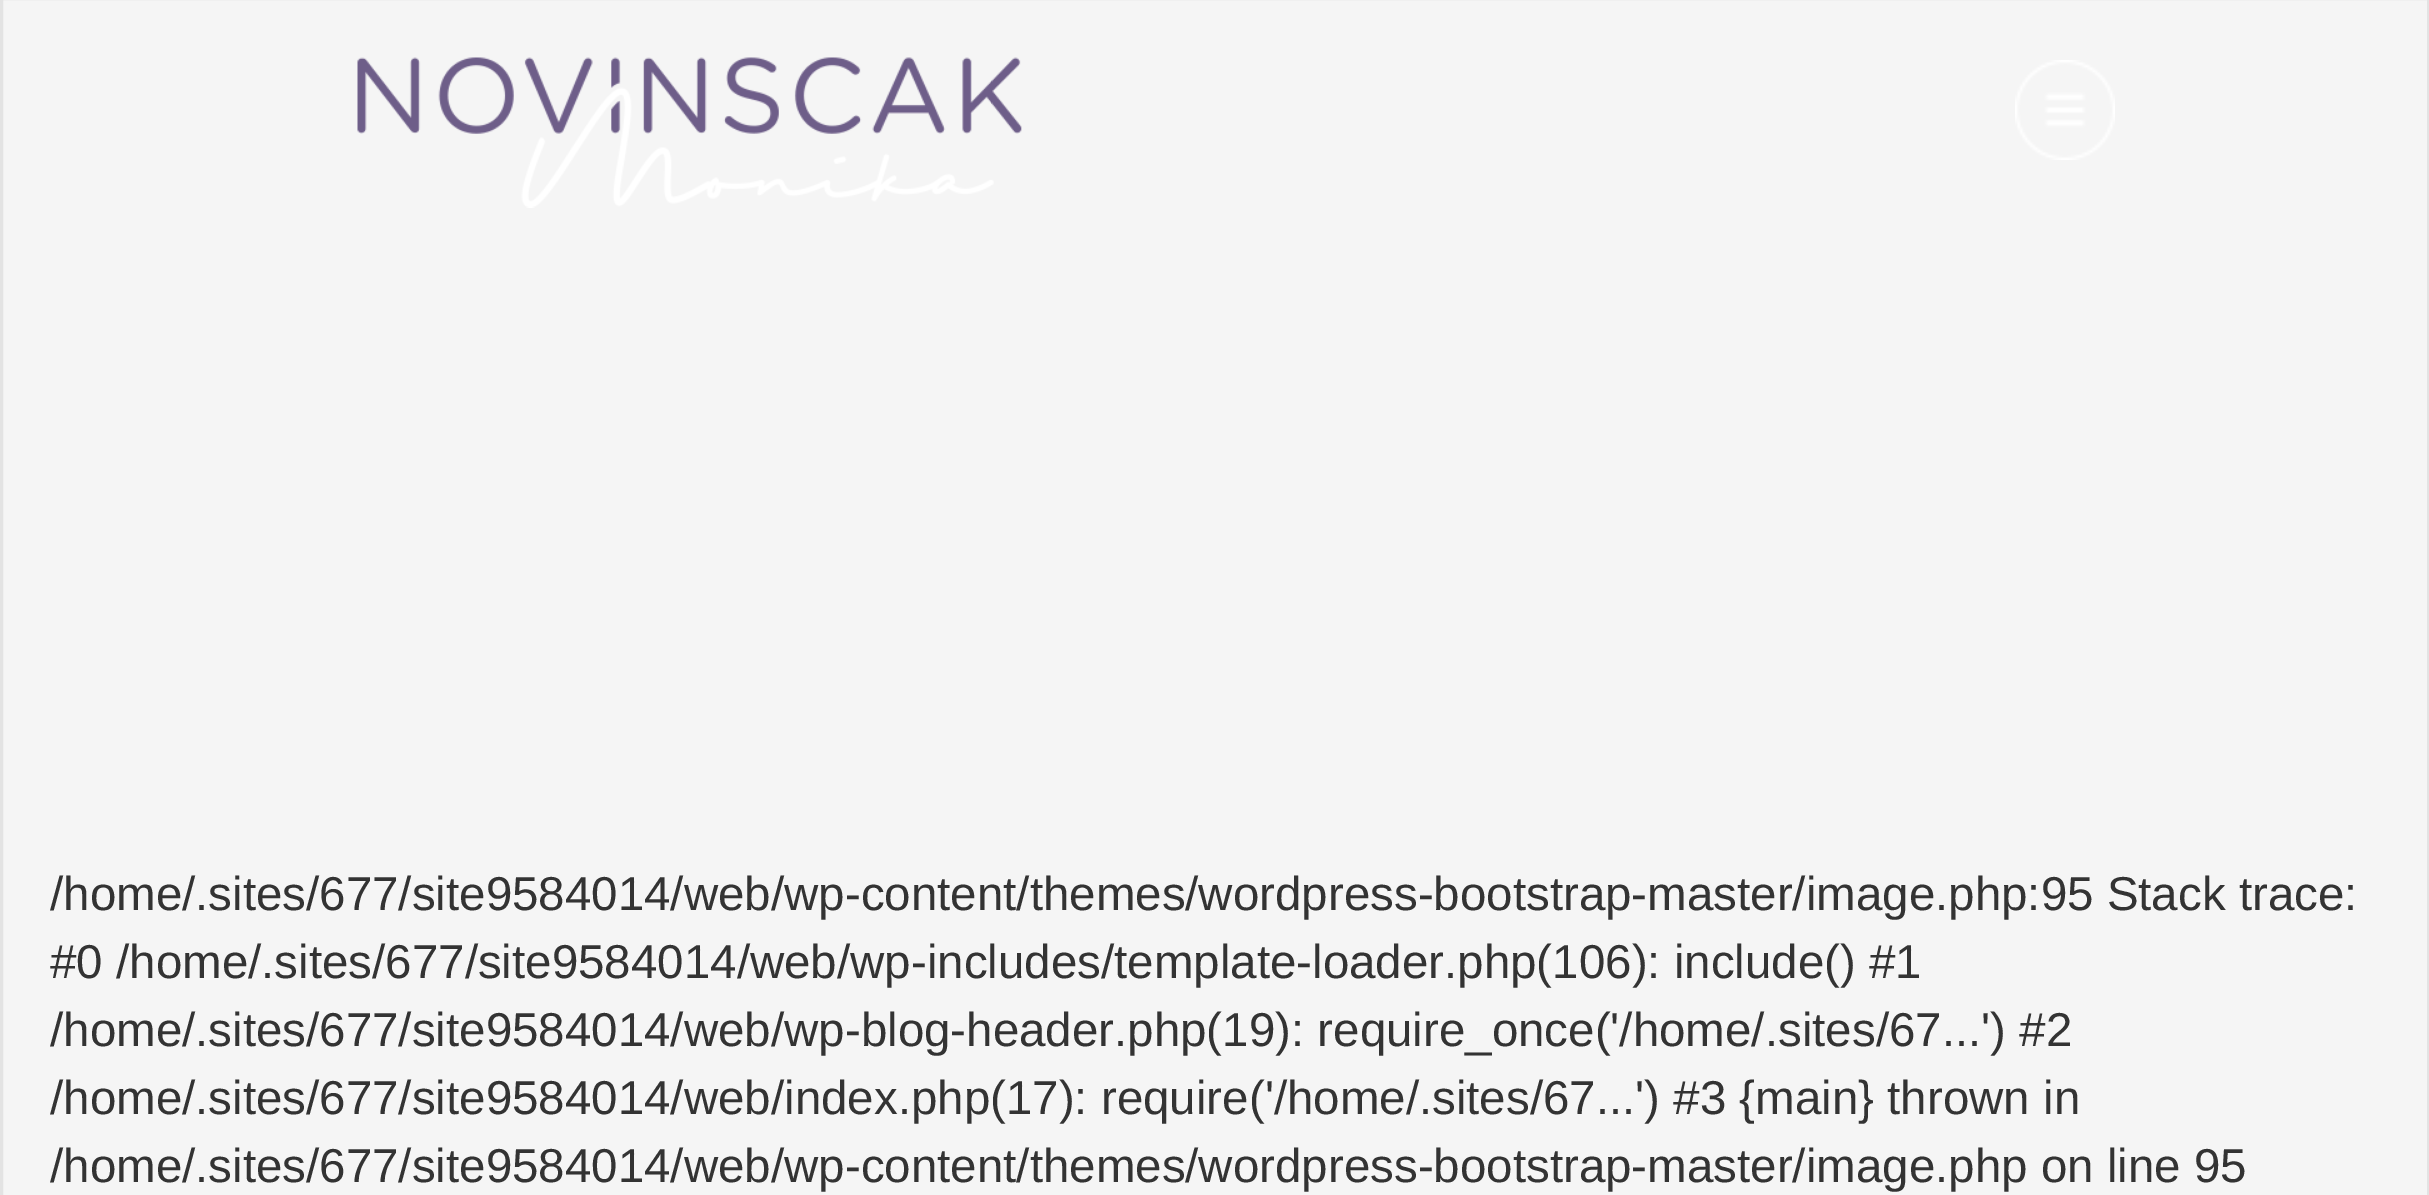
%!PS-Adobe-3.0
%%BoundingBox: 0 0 2429 1195
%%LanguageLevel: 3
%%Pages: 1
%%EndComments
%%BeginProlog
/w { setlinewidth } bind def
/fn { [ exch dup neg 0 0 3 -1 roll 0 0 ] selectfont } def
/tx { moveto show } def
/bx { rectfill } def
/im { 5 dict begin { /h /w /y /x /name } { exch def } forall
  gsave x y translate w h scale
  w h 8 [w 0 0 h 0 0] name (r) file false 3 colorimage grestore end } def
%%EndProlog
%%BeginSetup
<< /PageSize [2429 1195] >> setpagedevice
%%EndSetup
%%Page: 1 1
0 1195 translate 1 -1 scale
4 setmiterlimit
0.961 setgray
0 0 2429 1195 bx
0.89 setgray
3 w
1.5 -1.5 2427 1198 rectstroke
(image0.raw) 357 57 665 151 im
(image1.raw) 2015 60 100 100 im
/LiberationSans-Regular 47.5 fn
0.2 setgray
(/home/.sites/677/site9584014/web/wp-content/themes/wordpress-bootstrap-master/image.php:95 Stack trace:) 50 910 tx
(#0 /home/.sites/677/site9584014/web/wp-includes/template-loader.php\(106\): include\(\) #1) 50 978 tx
(/home/.sites/677/site9584014/web/wp-blog-header.php\(19\): require_once\('/home/.sites/67...'\) #2) 50 1046 tx
(/home/.sites/677/site9584014/web/index.php\(17\): require\('/home/.sites/67...'\) #3 {main} thrown in) 50 1114 tx
(/home/.sites/677/site9584014/web/wp-content/themes/wordpress-bootstrap-master/image.php on line 95) 50 1182 tx
showpage
%%EOF
